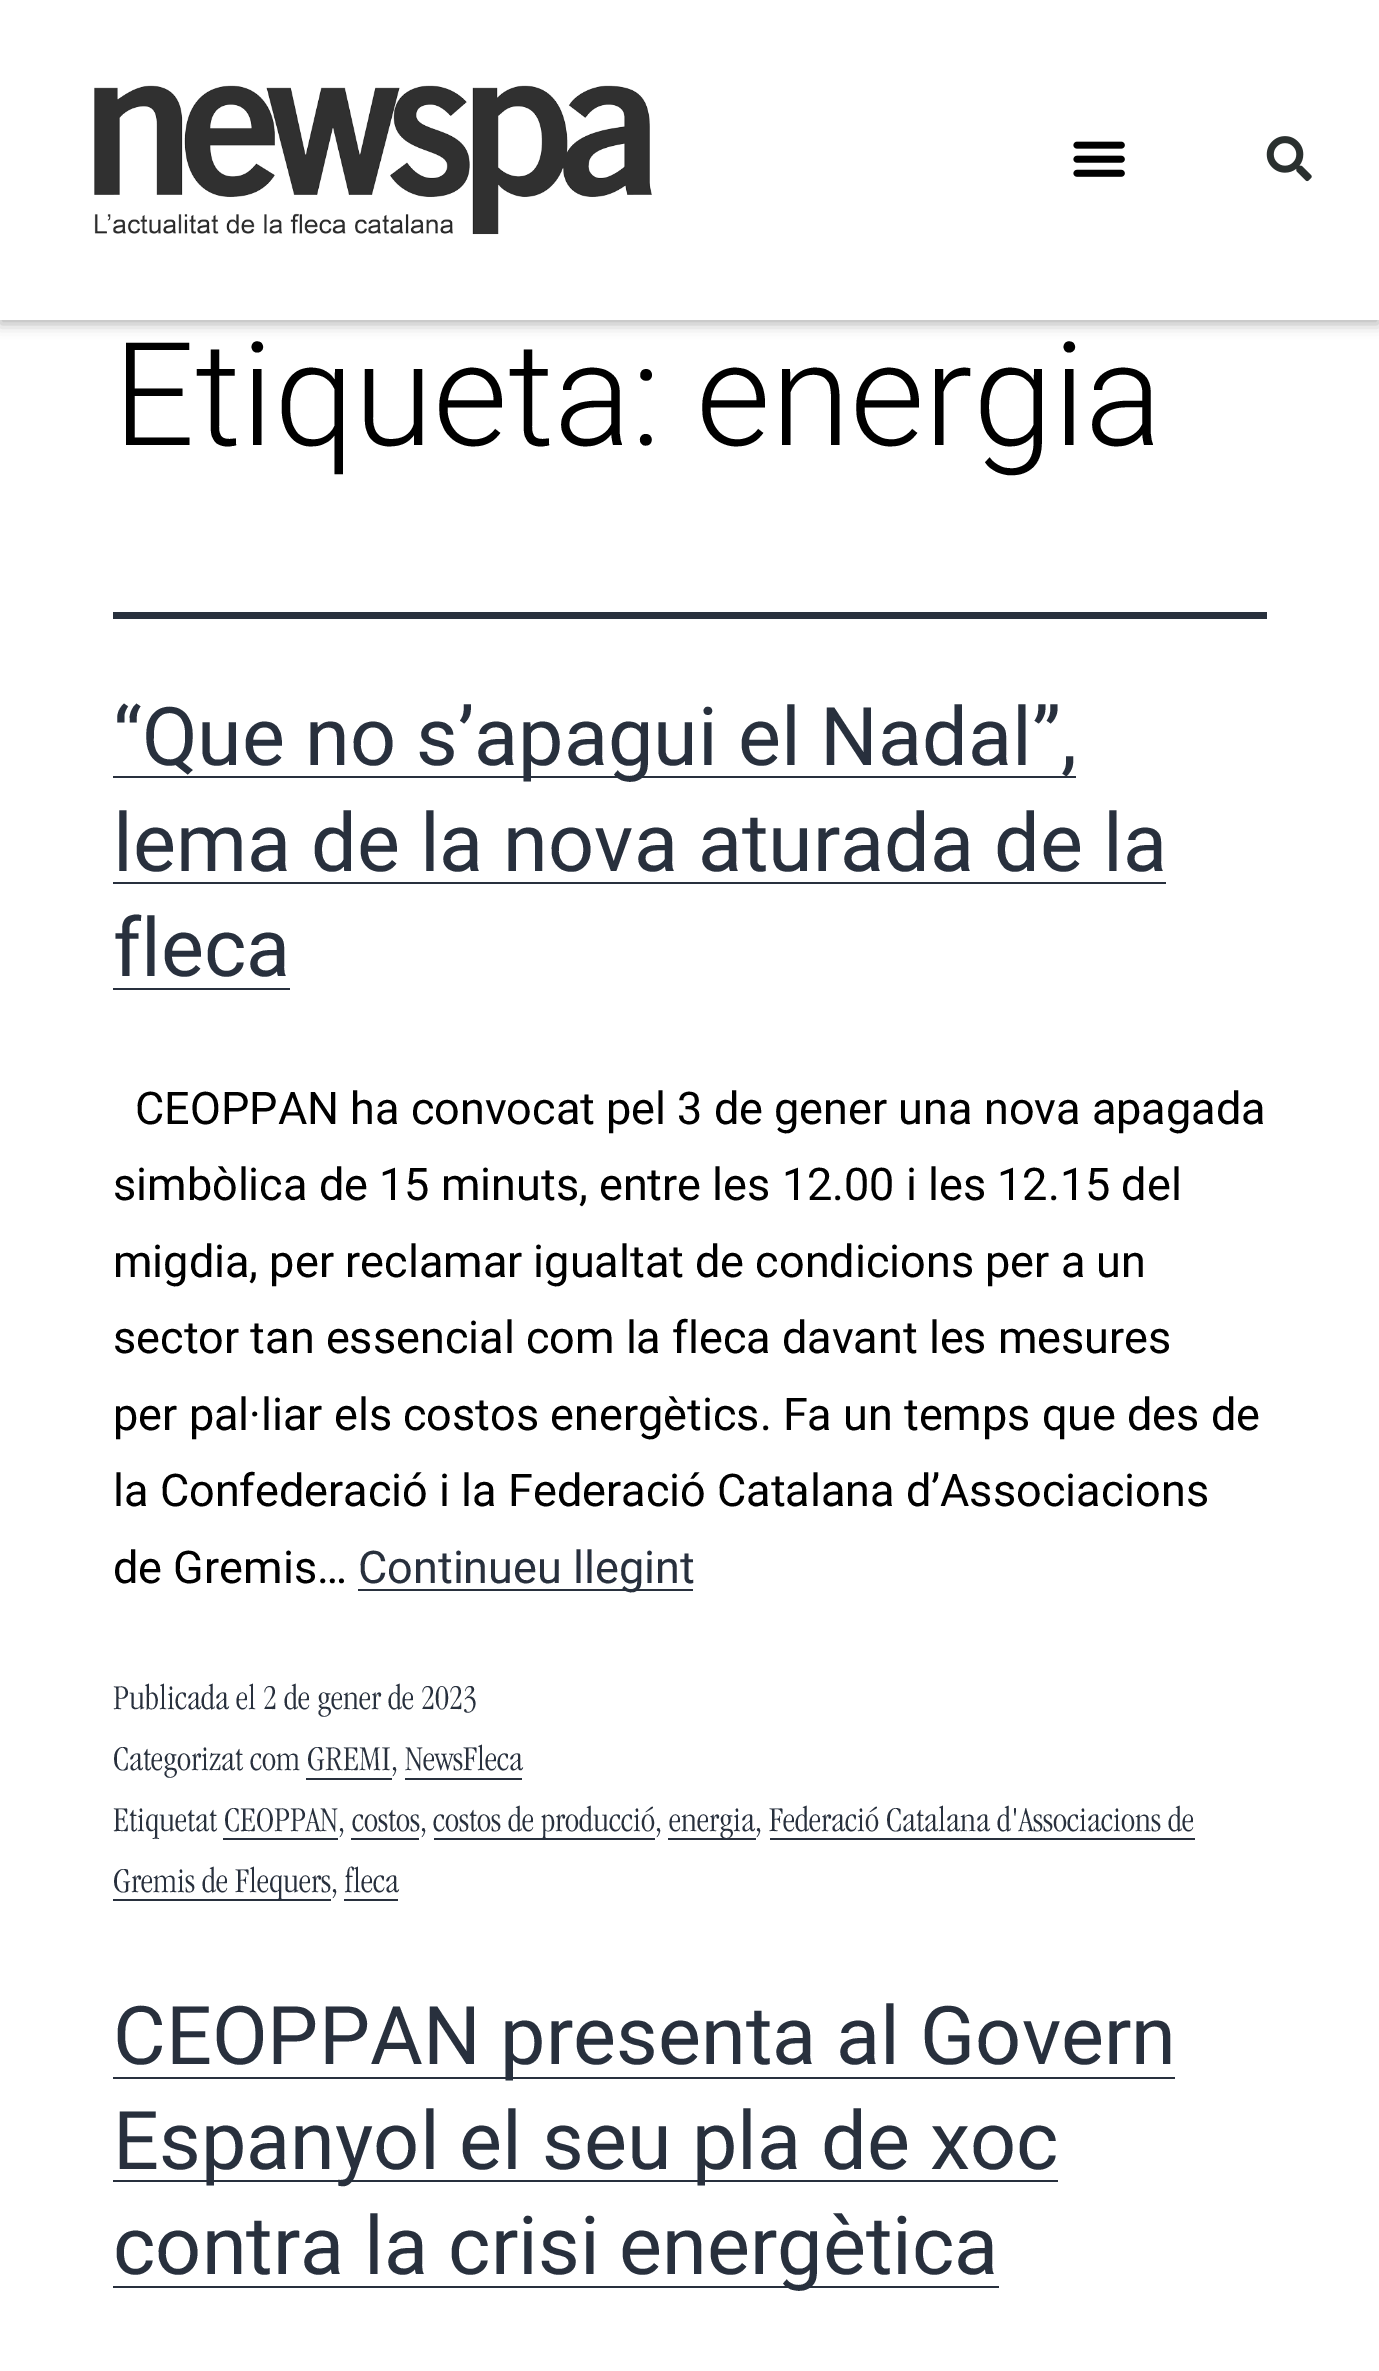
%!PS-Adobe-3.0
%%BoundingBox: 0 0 1379 2371
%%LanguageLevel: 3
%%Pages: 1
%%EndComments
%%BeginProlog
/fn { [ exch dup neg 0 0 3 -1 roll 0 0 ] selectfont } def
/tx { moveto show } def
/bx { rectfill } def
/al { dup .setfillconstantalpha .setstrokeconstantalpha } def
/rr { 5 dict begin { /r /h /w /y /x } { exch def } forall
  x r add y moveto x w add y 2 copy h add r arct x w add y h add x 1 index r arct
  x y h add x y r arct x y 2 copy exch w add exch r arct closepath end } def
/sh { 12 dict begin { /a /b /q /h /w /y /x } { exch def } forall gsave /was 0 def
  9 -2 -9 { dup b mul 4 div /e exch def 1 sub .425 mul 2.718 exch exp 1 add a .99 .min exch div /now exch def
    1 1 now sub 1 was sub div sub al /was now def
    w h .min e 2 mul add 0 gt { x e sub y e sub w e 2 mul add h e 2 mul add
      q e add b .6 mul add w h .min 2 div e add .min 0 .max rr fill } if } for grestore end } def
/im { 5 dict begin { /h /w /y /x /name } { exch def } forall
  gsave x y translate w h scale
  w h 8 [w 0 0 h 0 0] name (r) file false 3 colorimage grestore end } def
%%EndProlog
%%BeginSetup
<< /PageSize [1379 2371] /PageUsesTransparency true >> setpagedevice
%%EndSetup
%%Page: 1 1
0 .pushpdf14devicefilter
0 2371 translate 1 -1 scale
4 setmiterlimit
1 setgray
0 0 1379 2371 bx
0 setgray
0 5 1379 319 0 7 0.3 sh
1 setgray
0 0 1379 320 bx
(image0.raw) 94 85 558 150 im
(image1.raw) 1073 141 52 36 im
(image2.raw) 1266 136 46 46 im
0.157 0.188 0.239 setrgbcolor
113 612 1154 7 bx
/Roboto-Light 144 fn
0 setgray
(Etiqueta: energia) 113 445 tx
0.157 0.188 0.239 setrgbcolor
113 776 963 2 bx
/Roboto-Regular 81 fn
(“Que no s’apagui el Nadal”,) 113 765 tx
(lema de la nova aturada de la) 113 871 tx
113 882 1053 2 bx
(fleca) 113 976 tx
113 988 177 2 bx
/Roboto-Regular 45 fn
0 setgray
(CEOPPAN ha convocat pel 3 de gener una nova apagada) 135 1124 tx
(simbòlica de 15 minuts, entre les 12.00 i les 12.15 del) 113 1200 tx
(migdia, per reclamar igualtat de condicions per a un) 113 1277 tx
(sector tan essencial com la fleca davant les mesures) 113 1353 tx
(per pal·liar els costos energètics. Fa un temps que des de) 113 1430 tx
(la Confederació i la Federació Catalana d’Associacions) 113 1506 tx
(de Gremis…) 113 1583 tx
0.157 0.188 0.239 setrgbcolor
358 1589 335 2 bx
(Continueu llegint) 358 1583 tx
/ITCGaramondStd-Light 36 fn
(Publicada el 2 de gener de 2023) 113 1709 tx
(Categorizat com GREMI, NewsFleca) 113 1770 tx
306 1778 86 2 bx
405 1778 117 2 bx
(Etiquetat CEOPPAN, costos,) 113 1831 tx
434 1838 221 2 bx
(costos de producció,) 433 1831 tx
668 1838 88 2 bx
(energia, Federació Catalana d'Associacions de) 669 1831 tx
223 1838 115 2 bx
351 1838 68 2 bx
113 1899 218 2 bx
(Gremis de Flequers, fleca) 113 1892 tx
770 1838 425 2 bx
344 1899 54 2 bx
113 2077 1062 2 bx
/Roboto-Regular 81 fn
(CEOPPAN presenta al Govern) 113 2064 tx
113 2180 945 2 bx
(Espanyol el seu pla de xoc) 113 2169 tx
113 2286 886 2 bx
(contra la crisi energètica) 113 2274 tx
.poppdf14devicefilter showpage
%%EOF
